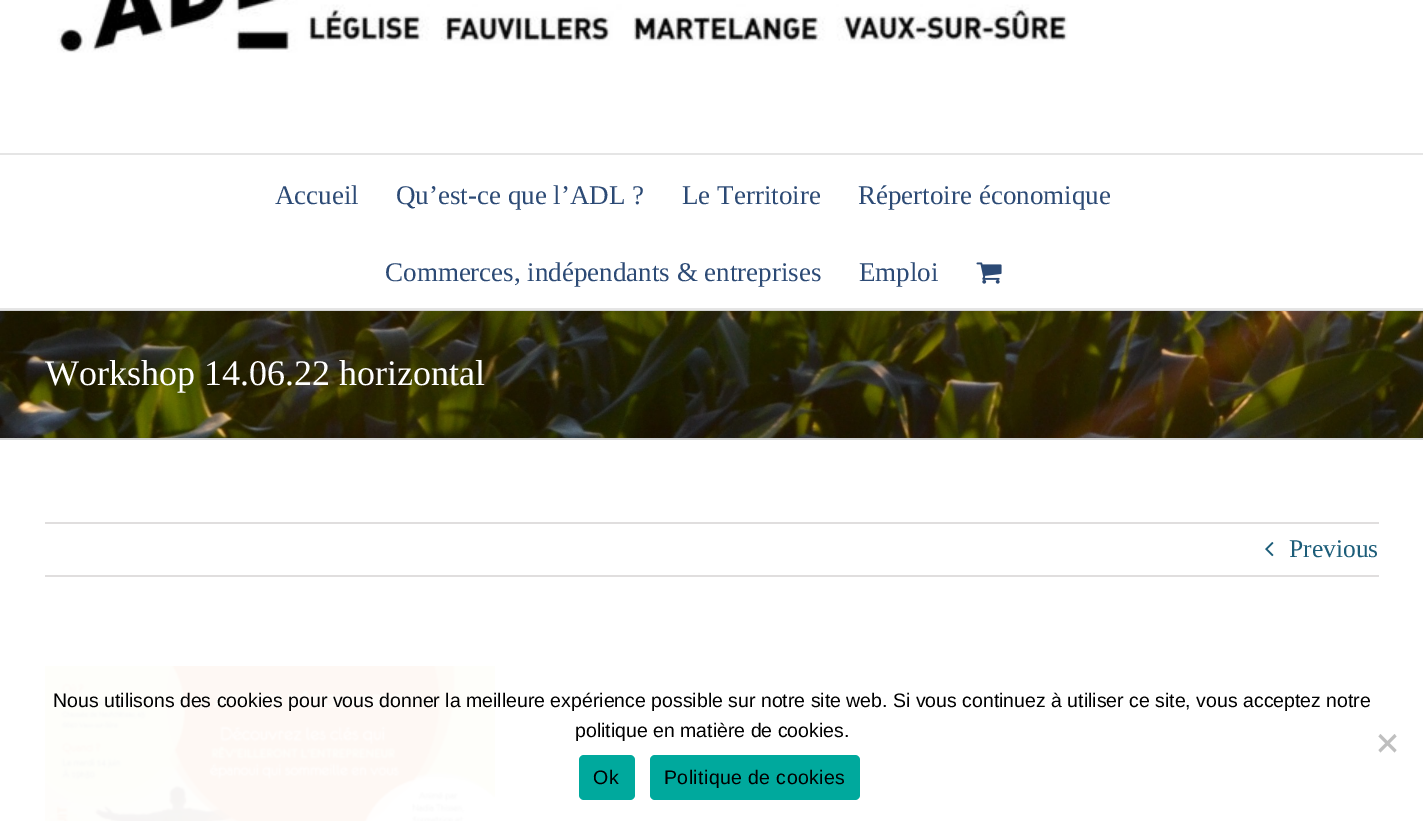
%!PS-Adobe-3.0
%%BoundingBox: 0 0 1423 821
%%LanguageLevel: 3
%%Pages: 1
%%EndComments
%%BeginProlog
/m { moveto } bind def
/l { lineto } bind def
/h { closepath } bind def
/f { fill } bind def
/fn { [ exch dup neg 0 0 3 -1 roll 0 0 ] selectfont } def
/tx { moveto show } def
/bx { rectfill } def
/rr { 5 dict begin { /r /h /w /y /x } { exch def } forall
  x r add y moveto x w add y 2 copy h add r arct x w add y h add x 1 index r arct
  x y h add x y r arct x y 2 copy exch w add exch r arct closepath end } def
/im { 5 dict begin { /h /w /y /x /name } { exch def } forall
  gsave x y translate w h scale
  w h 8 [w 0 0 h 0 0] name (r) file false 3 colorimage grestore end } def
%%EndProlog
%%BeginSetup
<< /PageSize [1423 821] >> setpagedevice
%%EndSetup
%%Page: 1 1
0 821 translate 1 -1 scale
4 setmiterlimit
1 setgray
0 0 1423 821 bx
0.898 setgray
0 153 1423 2 bx
(image0.raw) 57 0 1011 53 im
0 308 1423 2 bx
/LiberationSerif-Regular 27 fn
0.173 0.29 0.459 setrgbcolor
(Accueil) 275 204 tx
(Qu’est-ce que l’ADL ?) 396 204 tx
(Le Territoire) 682 204 tx
(Répertoire économique) 858 204 tx
(Commerces, indépendants & entreprises) 385 281 tx
(Emploi) 859 281 tx
(image1.raw) 976 262 26 22 im
(image2.raw) 0 311 1423 127 im
0.824 0.827 0.831 setrgbcolor
0 310 1423 1 bx
0 438 1423 2 bx
/LiberationSerif-Regular 36 fn
1 setgray
(Workshop 14.06.22 horizontal) 45 385 tx
0.878 0.871 0.871 setrgbcolor
45 522 1334 2 bx
45 575 1334 2 bx
(image3.raw) 1265 542 9 15 im
/LiberationSerif-Regular 25.5 fn
0.11 0.365 0.475 setrgbcolor
(Previous) 1289 557 tx
(image4.raw) 45 666 450 155 im
/LiberationSans-Regular 19.5 fn
0 setgray
(Nous utilisons des cookies pour vous donner la meilleure expérience possible sur notre site web. Si vous continuez à utiliser ce site, vous acceptez notre) 53 707 tx
(politique en matière de cookies.) 575 737 tx
0.749 setgray
1394.5 734 m 1396.5 736.5 l 1380.5 752.5 l 1378.5 750 l h f
1378.5 736.5 m 1380.5 734 l 1396.5 750 l 1394.5 752.5 l h f
0 0.663 0.616 setrgbcolor
579 755 56 45 5 rr f
0 setgray
593 784 m 0.4 0 (Ok) ashow
0 0.663 0.616 setrgbcolor
650 755 210 45 5 rr f
0 setgray
664 784 m 0.4 0 (Politique de cookies) ashow
showpage
%%EOF
